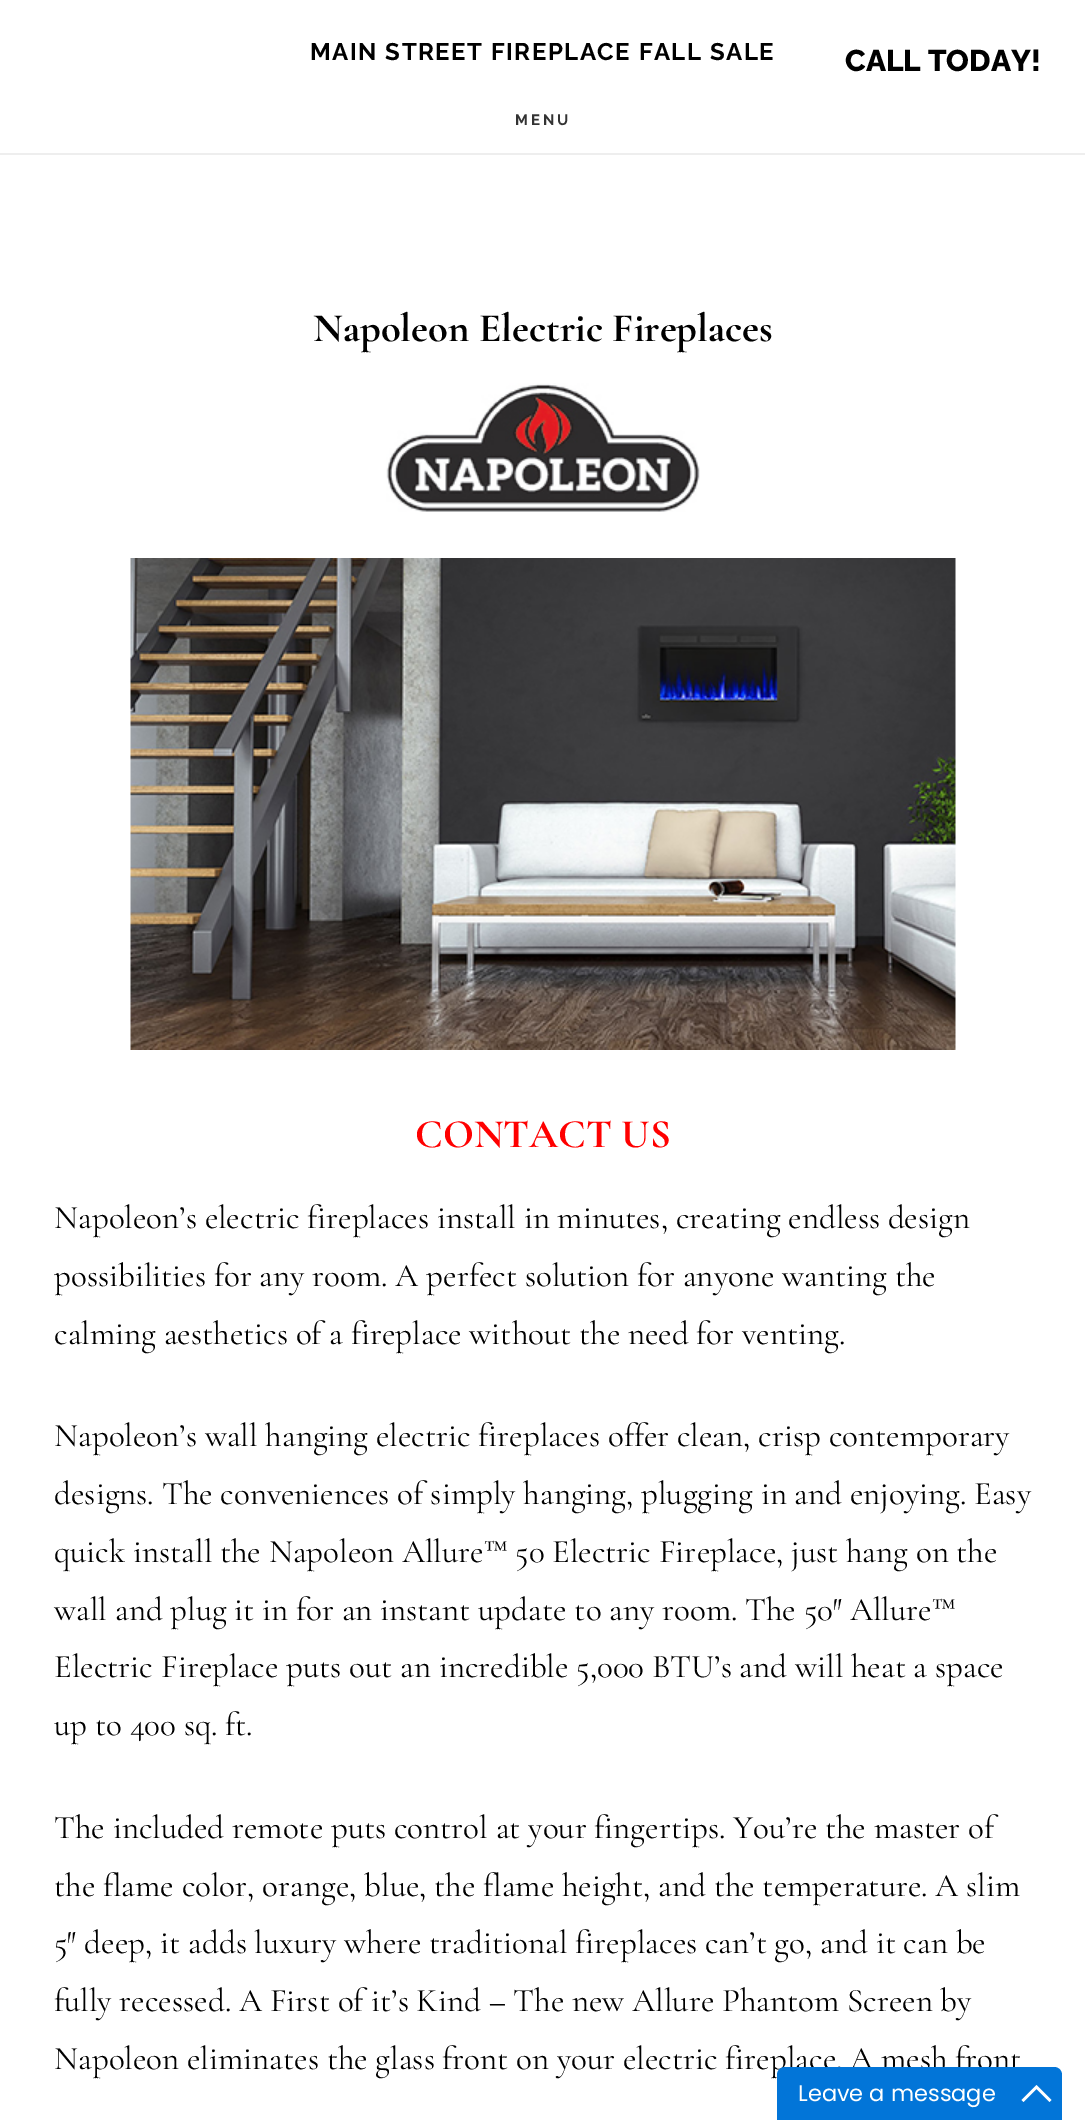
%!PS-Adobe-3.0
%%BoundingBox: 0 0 1085 2120
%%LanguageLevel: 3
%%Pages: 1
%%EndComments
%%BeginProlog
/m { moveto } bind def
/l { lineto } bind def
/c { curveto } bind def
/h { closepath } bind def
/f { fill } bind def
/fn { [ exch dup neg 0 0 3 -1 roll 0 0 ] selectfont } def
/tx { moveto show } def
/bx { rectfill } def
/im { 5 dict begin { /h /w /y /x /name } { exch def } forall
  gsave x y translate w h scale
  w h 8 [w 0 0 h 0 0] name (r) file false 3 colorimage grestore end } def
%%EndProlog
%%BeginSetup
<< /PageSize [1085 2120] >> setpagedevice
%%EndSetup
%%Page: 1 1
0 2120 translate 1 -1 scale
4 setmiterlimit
1 setgray
0 0 1085 2120 bx
0.933 setgray
0 153 1085 2 bx
/Raleway-Thin 24 fn
0 setgray
310 60 m 1.5 0 (MAIN STREET FIREPLACE FALL SALE) ashow
/Raleway-ExtraBold 30 fn
(CALL TODAY!) 845 71 tx
/Raleway-Thin 15 fn
0.2 setgray
515 125 m 3 0 (MENU) ashow
/CormorantGaramond-Bold 40.5 fn
0 setgray
(Napoleon Electric Fireplaces) 313 341 tx
(image0.raw) 386 383 314 129 im
(image1.raw) 130 558 826 492 im
1 0 0 setrgbcolor
(CONTACT US) 415 1147 tx
/CormorantGaramond-Regular 33 fn
0 setgray
(Napoleon’s electric fireplaces install in minutes, creating endless design) 54 1228 tx
(possibilities for any room. A perfect solution for anyone wanting the) 54 1286 tx
(calming aesthetics of a fireplace without the need for venting.) 54 1344 tx
(Napoleon’s wall hanging electric fireplaces offer clean, crisp contemporary) 54 1446 tx
(designs. The conveniences of simply hanging, plugging in and enjoying. Easy) 54 1504 tx
(quick install the Napoleon Allure™ 50 Electric Fireplace, just hang on the) 54 1562 tx
(wall and plug it in for an instant update to any room. The 50″ Allure™) 54 1620 tx
(Electric Fireplace puts out an incredible 5,000 BTU’s and will heat a space) 54 1677 tx
(up to 400 sq. ft.) 54 1735 tx
(The included remote puts control at your fingertips. You’re the master of) 54 1838 tx
(the flame color, orange, blue, the flame height, and the temperature. A slim) 54 1896 tx
(5″ deep, it adds luxury where traditional fireplaces can’t go, and it can be) 54 1953 tx
(fully recessed. A First of it’s Kind – The new Allure Phantom Screen by) 54 2011 tx
(Napoleon eliminates the glass front on your electric fireplace. A mesh front) 54 2069 tx
0.008 0.459 0.847 setrgbcolor
785 2067 m 1054 2067 l 1058.5 2067 1062 2070.5 1062 2075 c 1062 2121 l 777 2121 l 777 2075 l 777 2070.5 780.5 2067 785 2067 c h f
/Poppins-Regular 22.5 fn
1 setgray
(Leave a message) 798 2101 tx
1036.5 2085 m 1051.5 2100 l 1049.5 2102 l 1036.5 2089 l 1023.5 2102 l 1021.5 2100 l h f
showpage
%%EOF
